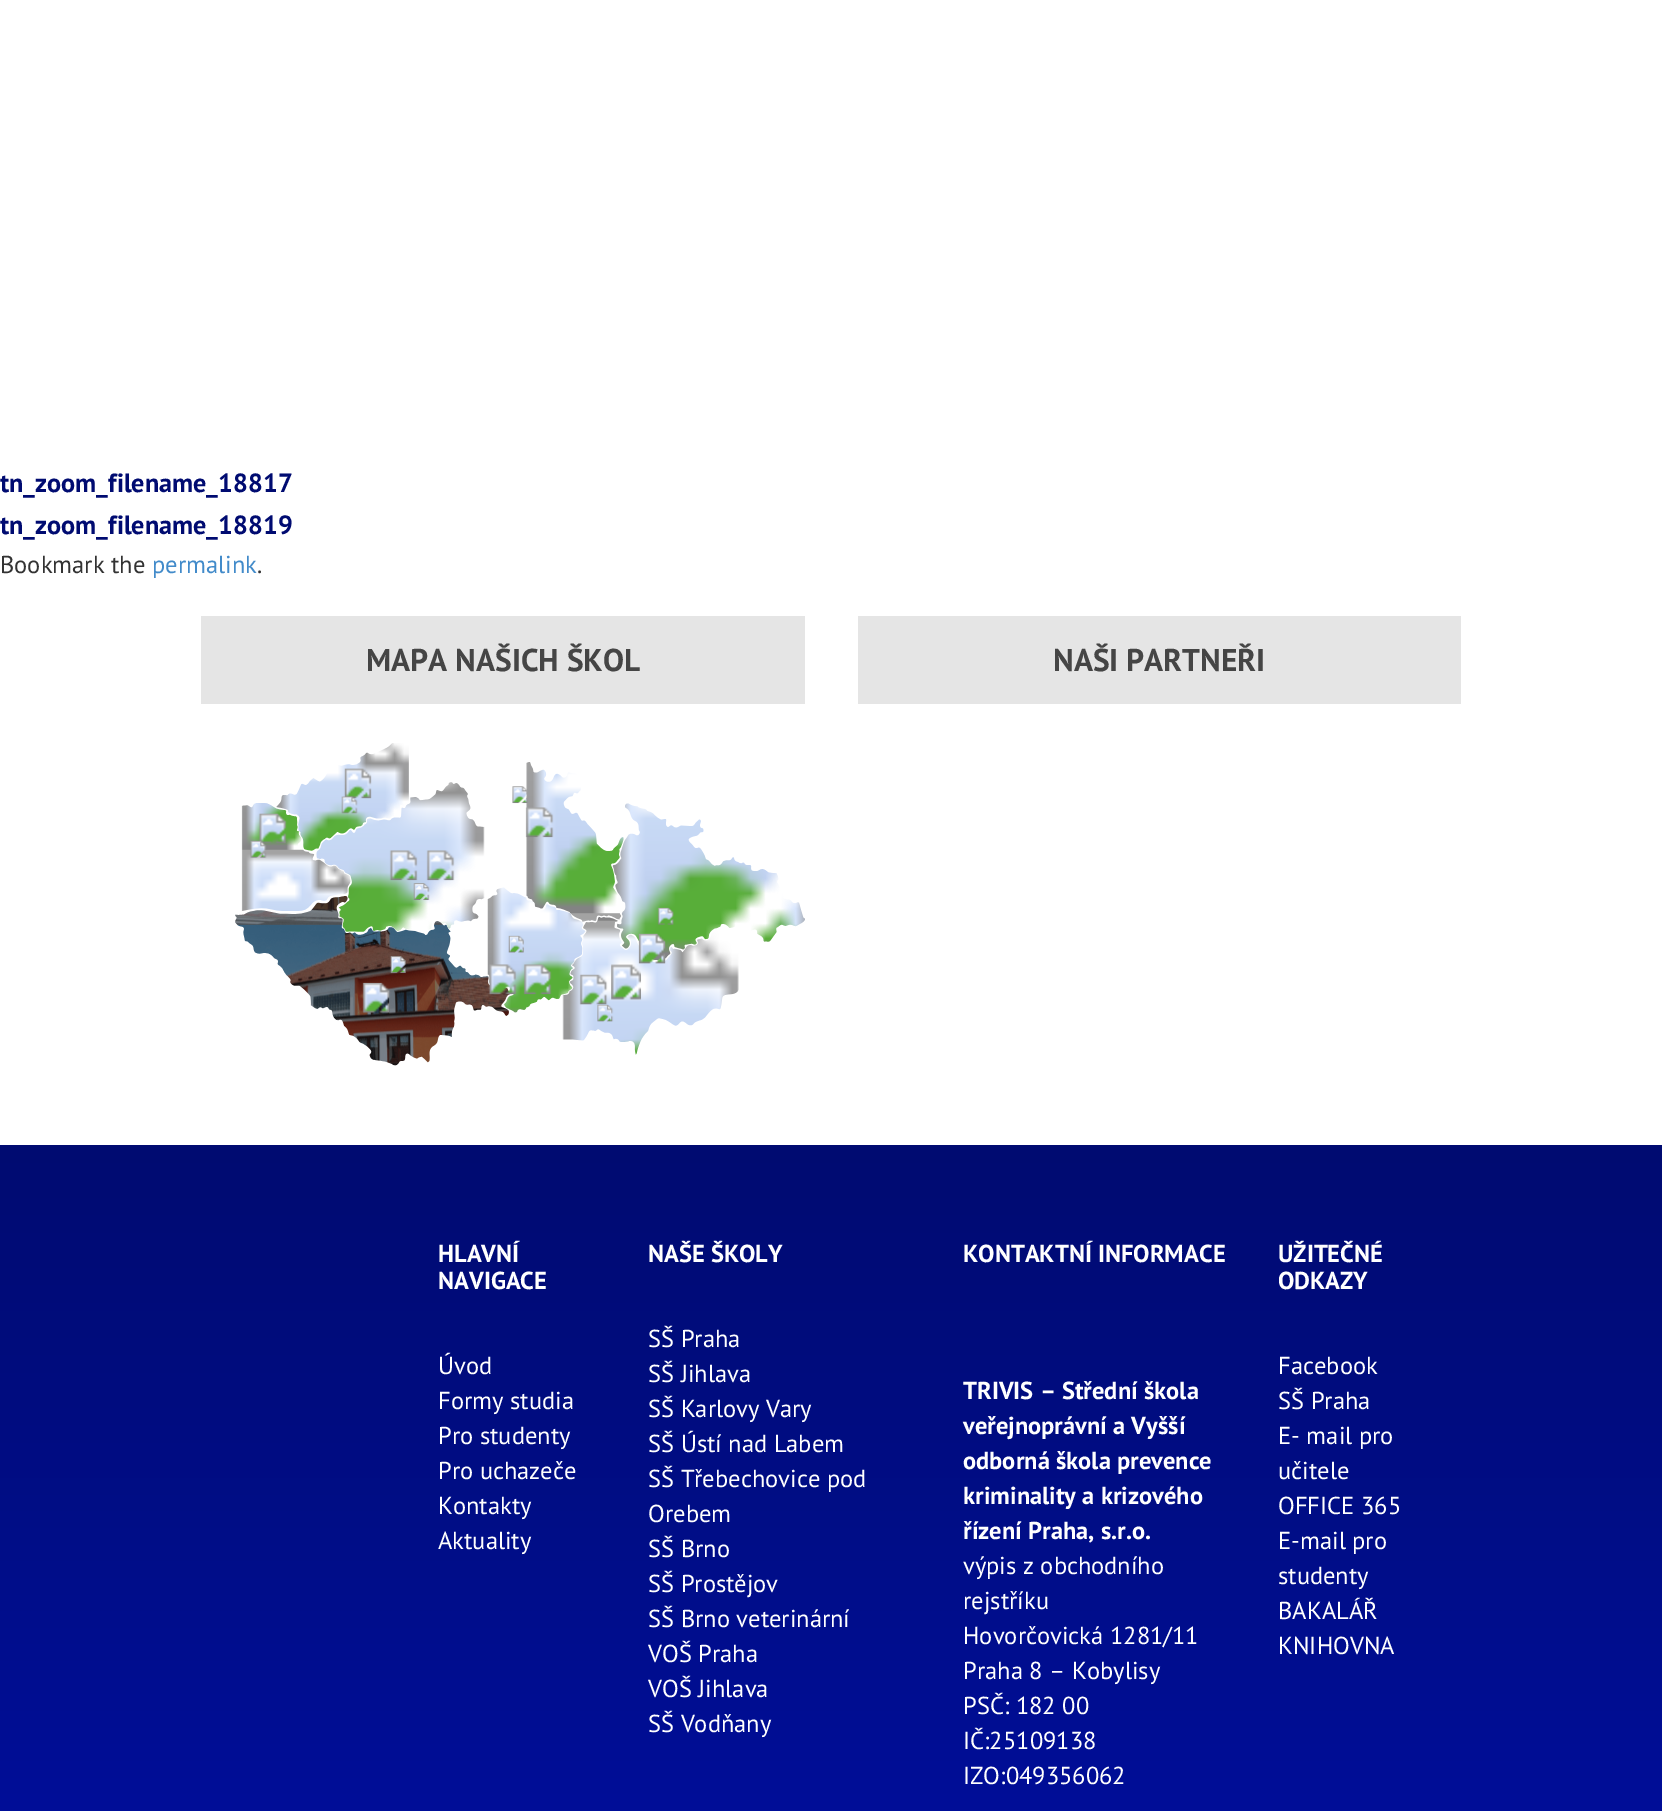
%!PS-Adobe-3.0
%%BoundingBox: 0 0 1662 1811
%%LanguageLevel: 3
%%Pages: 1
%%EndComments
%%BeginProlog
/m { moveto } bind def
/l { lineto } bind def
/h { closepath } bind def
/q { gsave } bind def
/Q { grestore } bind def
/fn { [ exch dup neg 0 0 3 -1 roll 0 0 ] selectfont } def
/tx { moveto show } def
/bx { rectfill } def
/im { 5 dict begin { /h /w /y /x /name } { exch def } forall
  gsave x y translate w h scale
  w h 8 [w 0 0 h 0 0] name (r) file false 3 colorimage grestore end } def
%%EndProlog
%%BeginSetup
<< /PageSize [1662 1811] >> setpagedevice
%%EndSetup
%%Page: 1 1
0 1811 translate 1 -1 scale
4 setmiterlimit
1 setgray
0 0 1662 1811 bx
/PTSans-Bold 26.25 fn
0 0.043 0.443 setrgbcolor
(tn_zoom_filename_18817) 0 492 tx
(tn_zoom_filename_18819) 0 534 tx
/PTSans-Regular 24.5 fn
0.2 setgray
(Bookmark the) 0 573 tx
0.259 0.545 0.792 setrgbcolor
(permalink) 152 573 tx
0.2 setgray
(.) 257 573 tx
0.898 setgray
201 616 604 88 bx
/PTSans-Bold 31.5 fn
0.271 setgray
(MAPA NAŠICH ŠKOL) 366 671 tx
(image0.raw) 235 743 570 323 im
0.898 setgray
858 616 603 88 bx
0.271 setgray
(NAŠI PARTNEŘI) 1053 671 tx
q 0 1145 m 1662 1145 l 1662 1811 l 0 1811 l h clip newpath
<< /ShadingType 2 /ColorSpace /DeviceRGB /Coords [831 1145 831 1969] /Extend [true true] /Function << /FunctionType 2 /Domain [0 1] /C0 [0 0.043 0.443] /C1 [0 0.059 0.631] /N 1 >> >> shfill Q
/PTSans-Bold 24.5 fn
1 setgray
(HLAVNÍ) 438 1262 tx
(NAVIGACE) 438 1289 tx
/PTSans-Regular 24.5 fn
(Úvod) 438 1374 tx
(Formy studia) 438 1409 tx
(Pro studenty) 438 1444 tx
(Pro uchazeče) 438 1479 tx
(Kontakty) 438 1514 tx
(Aktuality) 438 1549 tx
/PTSans-Bold 24.5 fn
(NAŠE ŠKOLY) 648 1262 tx
/PTSans-Regular 24.5 fn
(SŠ Praha) 648 1347 tx
(SŠ Jihlava) 648 1382 tx
(SŠ Karlovy Vary) 648 1417 tx
(SŠ Ústí nad Labem) 648 1452 tx
(SŠ Třebechovice pod) 648 1487 tx
(Orebem) 648 1522 tx
(SŠ Brno) 648 1557 tx
(SŠ Prostějov) 648 1592 tx
(SŠ Brno veterinární) 648 1627 tx
(VOŠ Praha) 648 1662 tx
(VOŠ Jihlava) 648 1697 tx
(SŠ Vodňany) 648 1732 tx
/PTSans-Bold 24.5 fn
(KONTAKTNÍ INFORMACE) 963 1262 tx
(TRIVIS – Střední škola) 963 1399 tx
(veřejnoprávní a Vyšší) 963 1434 tx
(odborná škola prevence) 963 1469 tx
(kriminality a krizového) 963 1504 tx
(řízení Praha, s.r.o.) 963 1539 tx
/PTSans-Regular 24.5 fn
(výpis z obchodního) 963 1574 tx
(rejstříku) 963 1609 tx
(Hovorčovická 1281/11) 963 1644 tx
(Praha 8 – Kobylisy) 963 1679 tx
(PSČ: 182 00) 963 1714 tx
(IČ:25109138) 963 1749 tx
(IZO:049356062) 963 1784 tx
/PTSans-Bold 24.5 fn
(UŽITEČNÉ) 1278 1262 tx
(ODKAZY) 1278 1289 tx
/PTSans-Regular 24.5 fn
(Facebook) 1278 1374 tx
(SŠ Praha) 1278 1409 tx
(E- mail pro) 1278 1444 tx
(učitele) 1278 1479 tx
(OFFICE 365) 1278 1514 tx
(E-mail pro) 1278 1549 tx
(studenty) 1278 1584 tx
(BAKALÁŘ) 1278 1619 tx
(KNIHOVNA) 1278 1654 tx
showpage
%%EOF
